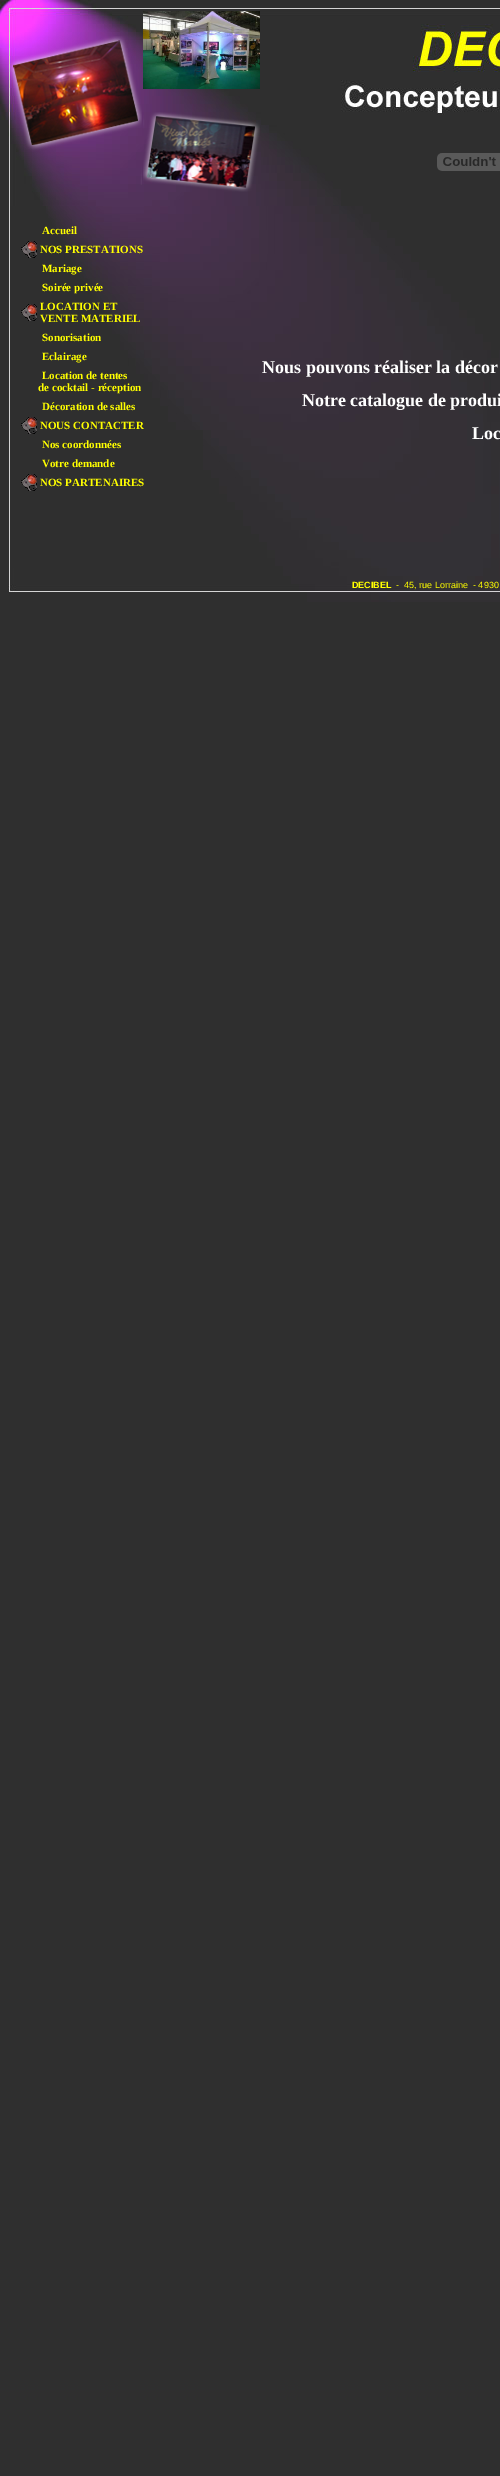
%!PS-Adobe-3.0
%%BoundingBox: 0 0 500 2476
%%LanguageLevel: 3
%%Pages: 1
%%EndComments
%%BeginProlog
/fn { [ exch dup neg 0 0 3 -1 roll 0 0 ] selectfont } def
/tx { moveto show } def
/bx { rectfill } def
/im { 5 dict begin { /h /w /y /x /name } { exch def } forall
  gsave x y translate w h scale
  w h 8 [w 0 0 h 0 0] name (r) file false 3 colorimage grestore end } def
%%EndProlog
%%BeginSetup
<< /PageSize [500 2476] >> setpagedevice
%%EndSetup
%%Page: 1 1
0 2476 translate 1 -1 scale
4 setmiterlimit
0.184 setgray
0 0 500 2476 bx
(image0.raw) 0 0 261 206 im
(image1.raw) 8 36 134 149 im
(image2.raw) 143 11 117 78 im
(image3.raw) 143 112 117 80 im
(image4.raw) 261 8 239 107 im
(image5.raw) 261 125 80 81 im
(image6.raw) 437 153 63 18 im
0.835 setgray
9 206 1 362 bx
(image7.raw) 46 206 157 224 im
/LiberationSerif-Bold 11 fn
1 1 0 setrgbcolor
(Accueil) 42 234 tx
(image8.raw) 21 241 16 17 im
(NOS PRESTATIONS) 40 253 tx
(Mariage) 42 272 tx
(Soirée privée) 42 291 tx
(image8.raw) 21 304 16 17 im
(LOCATION ET) 40 310 tx
(VENTE MATERIEL) 40 322 tx
(Sonorisation) 42 341 tx
(Eclairage) 42 360 tx
(Location de tentes) 42 379 tx
(de cocktail - réception) 38 391 tx
(Décoration de salles) 42 410 tx
(image8.raw) 21 417 16 17 im
(NOUS CONTACTER) 40 429 tx
(Nos coordonnées) 42 448 tx
(Votre demande) 42 467 tx
(image8.raw) 21 474 16 17 im
(NOS PARTENAIRES) 40 486 tx
(image9.raw) 203 206 297 362 im
/LiberationSerif-Bold 18 fn
1 setgray
(Nous pouvons réaliser la décor) 262 373 tx
(Notre catalogue de produi) 302 406 tx
(Loc) 472 439 tx
(image10.raw) 8 568 195 24 im
(image11.raw) 203 568 297 34 im
/LiberationSans-Bold 9 fn
1 1 0 setrgbcolor
(DECIBEL) 352 588 tx
/LiberationSans-Regular 9 fn
(-) 396 588 tx
(45, rue Lorraine) 404 588 tx
(- 4930) 473 588 tx
showpage
%%EOF
